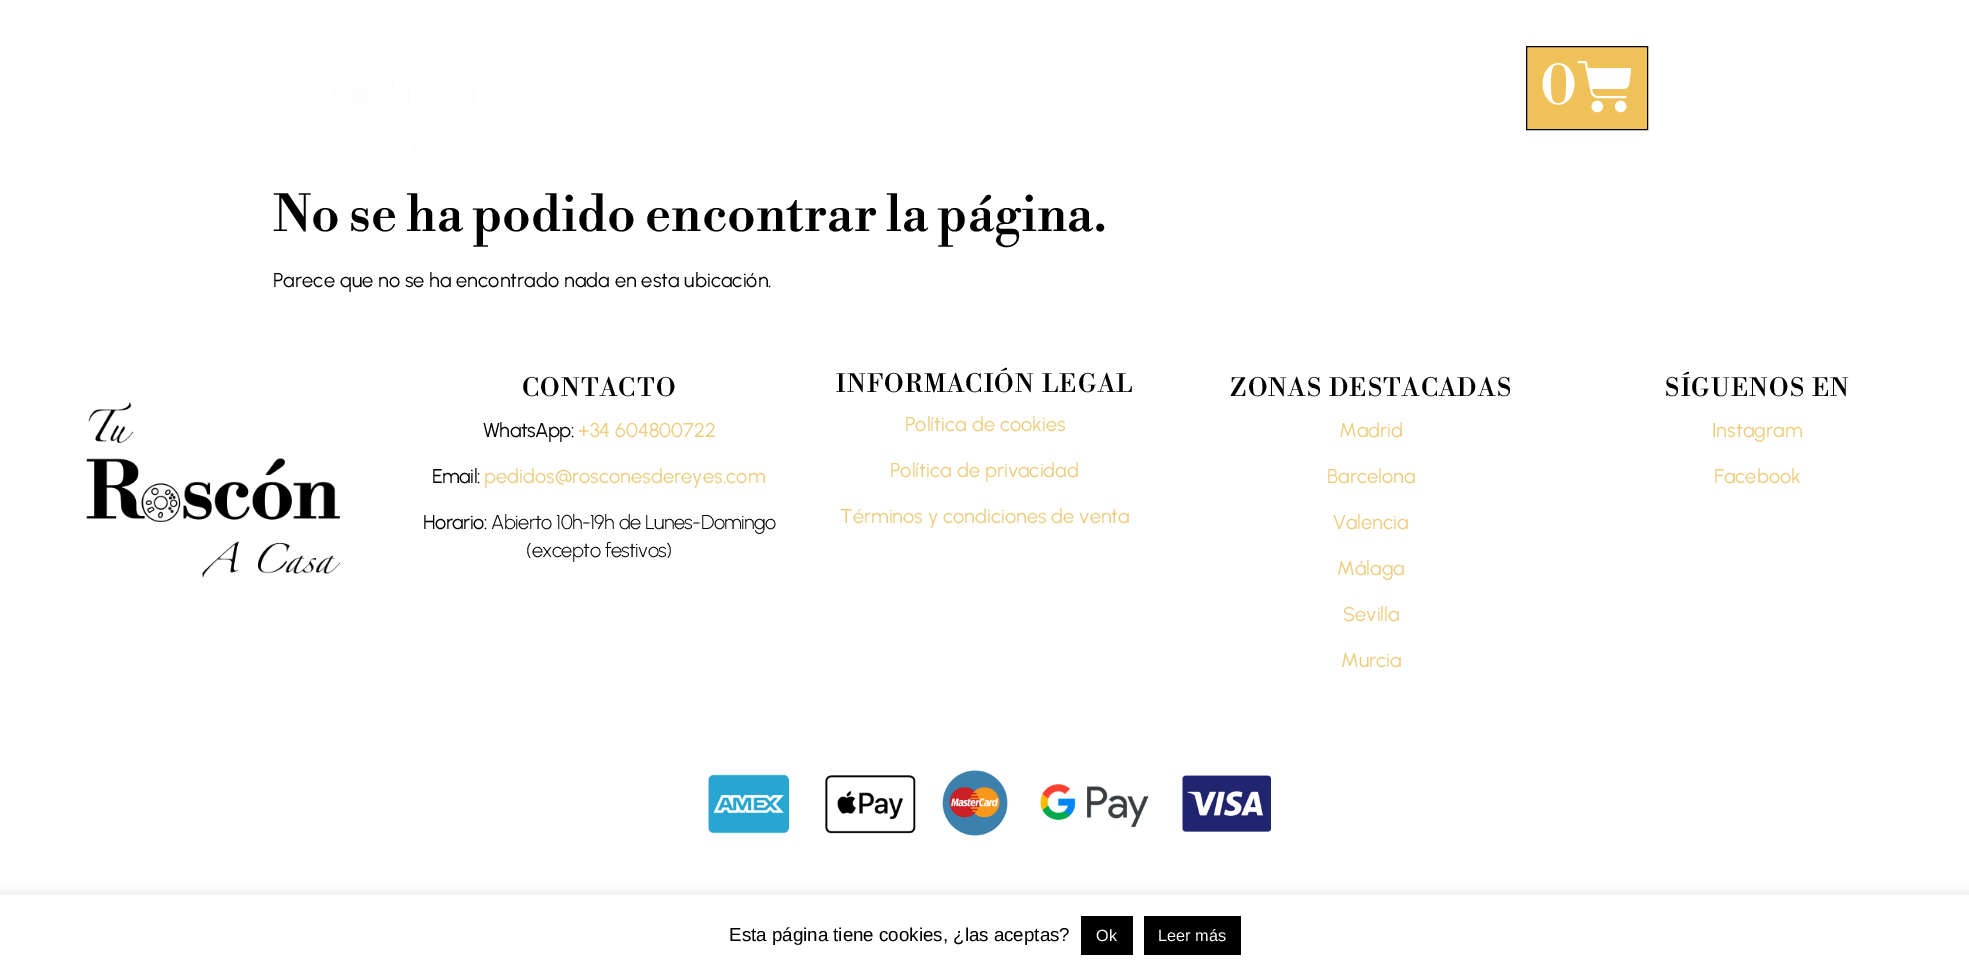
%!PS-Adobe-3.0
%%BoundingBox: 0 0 1969 970
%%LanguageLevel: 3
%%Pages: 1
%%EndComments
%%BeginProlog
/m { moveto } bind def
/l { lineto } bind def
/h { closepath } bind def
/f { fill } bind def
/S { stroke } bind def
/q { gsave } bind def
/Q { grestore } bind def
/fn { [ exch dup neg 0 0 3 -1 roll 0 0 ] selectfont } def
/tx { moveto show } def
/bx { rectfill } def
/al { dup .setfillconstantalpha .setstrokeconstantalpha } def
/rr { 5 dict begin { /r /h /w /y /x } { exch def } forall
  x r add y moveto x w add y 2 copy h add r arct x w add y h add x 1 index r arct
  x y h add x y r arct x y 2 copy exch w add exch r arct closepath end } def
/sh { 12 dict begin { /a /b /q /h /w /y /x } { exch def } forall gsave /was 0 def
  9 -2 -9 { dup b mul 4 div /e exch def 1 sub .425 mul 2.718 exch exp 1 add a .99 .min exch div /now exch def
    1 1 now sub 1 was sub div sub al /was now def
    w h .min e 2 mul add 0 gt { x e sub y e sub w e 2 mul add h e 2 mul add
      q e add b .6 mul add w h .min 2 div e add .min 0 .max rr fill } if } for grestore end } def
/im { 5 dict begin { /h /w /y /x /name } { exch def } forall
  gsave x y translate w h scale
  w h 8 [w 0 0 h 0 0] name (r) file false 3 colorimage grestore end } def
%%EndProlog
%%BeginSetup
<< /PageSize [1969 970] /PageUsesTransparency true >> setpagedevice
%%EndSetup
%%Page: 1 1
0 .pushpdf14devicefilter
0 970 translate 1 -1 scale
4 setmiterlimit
1 setgray
0 0 1969 970 bx
(image0.raw) 301 23 183 139 im
0.933 0.761 0.345 setrgbcolor
1526.5 46.5 m 1647.5 46.5 l 1647.5 129.5 l 1526.5 129.5 l h q f Q
0 setgray
S
/LibreBodoni-Regular 56 fn
1 setgray
(0) 1540 104 tx
(image1.raw) 1577 61 55 52 im
/LibreBodoni-Medium 50 fn
0 setgray
(No se ha podido encontrar la página.) 273 231 tx
/Urbanist-Regular 20 fn
(Parece que no se ha encontrado nada en esta ubicación.) 273 287 tx
(image2.raw) 86 402 255 176 im
/LibreBodoni-Regular 25 fn
522 396 m 1.25 0 (CONTACTO) ashow
/Urbanist-Regular 20 fn
483 437 m -0.55 0 (WhatsApp:) ashow
0.925 0.796 0.478 setrgbcolor
(+34 604800722) 578 437 tx
0 setgray
432 483 m -0.55 0 (Email:) ashow
0.925 0.796 0.478 setrgbcolor
(pedidos@rosconesdereyes.com) 484 483 tx
0 setgray
423 529 m -0.55 0 (Horario:) ashow
/Urbanist-Light 20 fn
491 529 m -0.55 0 (Abierto 10h-19h de Lunes-Domingo) ashow
526 557 m -0.55 0 (\(excepto festivos\)) ashow
/LibreBodoni-Regular 25 fn
836 392 m 1.25 0 (INFORMACIÓN LEGAL) ashow
/Urbanist-Regular 20 fn
0.925 0.796 0.478 setrgbcolor
(Política de cookies) 905 431 tx
(Política de privacidad) 890 477 tx
(Términos y condiciones de venta) 840 523 tx
/LibreBodoni-Regular 25 fn
0 setgray
1230 396 m 1.25 0 (ZONAS DESTACADAS) ashow
/Urbanist-Regular 20 fn
0.925 0.796 0.478 setrgbcolor
(Madrid) 1339 437 tx
(Barcelona) 1327 483 tx
(Valencia) 1333 529 tx
(Málaga) 1337 575 tx
(Sevilla) 1343 621 tx
(Murcia) 1341 667 tx
/LibreBodoni-Regular 25 fn
0 setgray
1665 396 m 1.25 0 (SÍGUENOS EN) ashow
/Urbanist-Regular 20 fn
0.925 0.796 0.478 setrgbcolor
(Instagram) 1712 437 tx
(Facebook) 1714 483 tx
(image3.raw) 708 770 563 66 im
0.675 0.671 0.671 setrgbcolor
0 894 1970 75 0 6 0.3 sh
1 setgray
0 895 1969 75 bx
/LiberationSans-Regular 18.75 fn
0 setgray
(Esta página tiene cookies, ¿las aceptas?) 729 941 tx
1081 916 52 39 bx
/LiberationSans-Regular 16.25 fn
1 setgray
(Ok) 1096 941 tx
0 setgray
1144 916 97 39 bx
1 setgray
(Leer más) 1158 941 tx
.poppdf14devicefilter showpage
%%EOF
